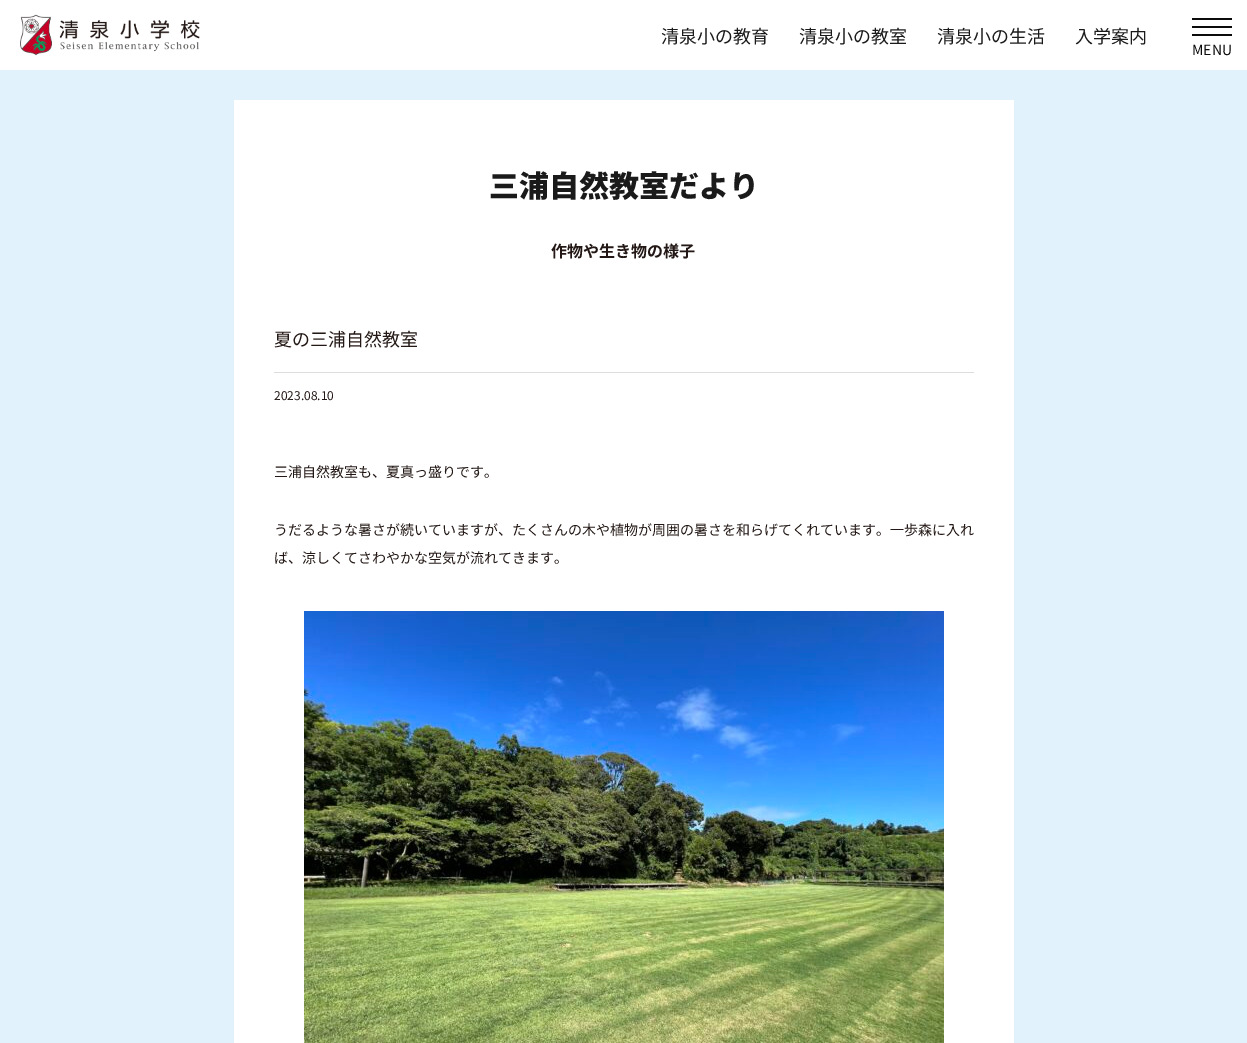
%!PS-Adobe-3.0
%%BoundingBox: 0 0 1247 1043
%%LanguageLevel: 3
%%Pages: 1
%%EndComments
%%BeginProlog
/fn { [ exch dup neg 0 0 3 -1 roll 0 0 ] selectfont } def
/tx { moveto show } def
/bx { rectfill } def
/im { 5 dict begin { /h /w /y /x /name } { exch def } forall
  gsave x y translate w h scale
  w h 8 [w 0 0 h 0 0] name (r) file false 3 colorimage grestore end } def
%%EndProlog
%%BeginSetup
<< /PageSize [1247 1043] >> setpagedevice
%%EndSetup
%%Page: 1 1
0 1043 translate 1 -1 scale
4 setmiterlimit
1 setgray
0 0 1247 1043 bx
(image0.raw) 20 14 180 42 im
/NotoSansJP-Regular 18 fn
0.102 setgray
(清泉小の教育) 661 43 tx
(清泉小の教室) 799 43 tx
(清泉小の生活) 937 43 tx
(入学案内) 1075 43 tx
0.043 setgray
1192 18 40 2 bx
1192 26 40 2 bx
1192 34 40 2 bx
/NotoSansJP-Regular 14 fn
(MENU) 1192 55 tx
0.882 0.949 0.988 setrgbcolor
0 70 1247 973 bx
1 setgray
234 100 780 943 bx
/NotoSansJP-Black 30 fn
0.102 setgray
(三浦自然教室だより) 489 197 tx
/NotoSansJP-Bold 16 fn
0.137 0.094 0.082 setrgbcolor
(作物や生き物の様子) 551 257 tx
0.867 setgray
274 372 700 1 bx
/NotoSansJP-Regular 18 fn
0.137 0.094 0.082 setrgbcolor
(夏の三浦自然教室) 274 346 tx
/NotoSansJP-Regular 12 fn
(2023.08.10) 274 400 tx
/NotoSansJP-Regular 14 fn
(三浦自然教室も、夏真っ盛りです。) 274 477 tx
(うだるような暑さが続いていますが、たくさんの木や植物が周囲の暑さを和らげてくれています。一歩森に入れ) 274 535 tx
(ば、涼しくてさわやかな空気が流れてきます。) 274 563 tx
(image1.raw) 304 611 640 432 im
showpage
%%EOF
